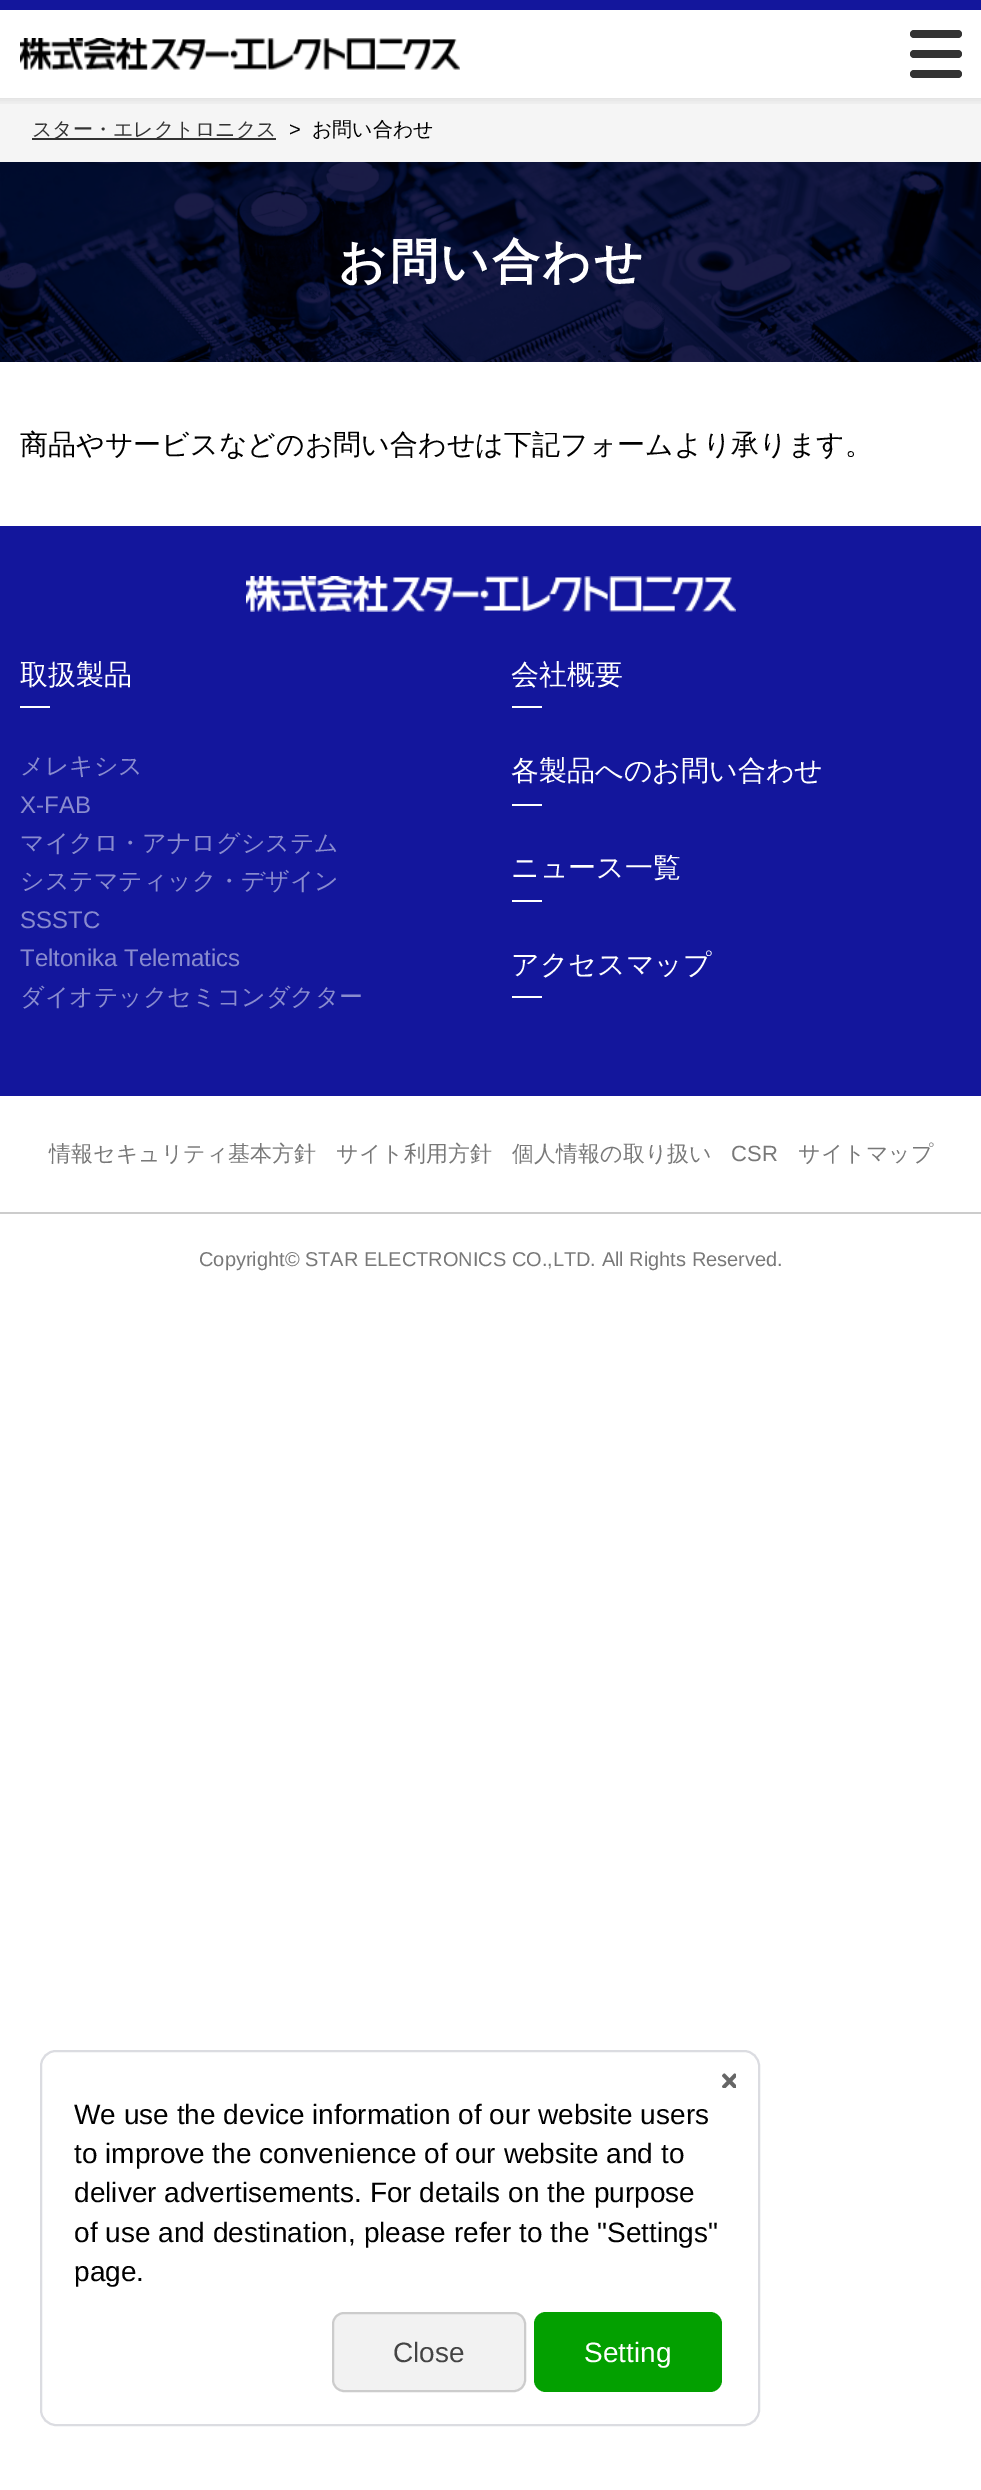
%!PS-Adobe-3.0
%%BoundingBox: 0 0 981 2490
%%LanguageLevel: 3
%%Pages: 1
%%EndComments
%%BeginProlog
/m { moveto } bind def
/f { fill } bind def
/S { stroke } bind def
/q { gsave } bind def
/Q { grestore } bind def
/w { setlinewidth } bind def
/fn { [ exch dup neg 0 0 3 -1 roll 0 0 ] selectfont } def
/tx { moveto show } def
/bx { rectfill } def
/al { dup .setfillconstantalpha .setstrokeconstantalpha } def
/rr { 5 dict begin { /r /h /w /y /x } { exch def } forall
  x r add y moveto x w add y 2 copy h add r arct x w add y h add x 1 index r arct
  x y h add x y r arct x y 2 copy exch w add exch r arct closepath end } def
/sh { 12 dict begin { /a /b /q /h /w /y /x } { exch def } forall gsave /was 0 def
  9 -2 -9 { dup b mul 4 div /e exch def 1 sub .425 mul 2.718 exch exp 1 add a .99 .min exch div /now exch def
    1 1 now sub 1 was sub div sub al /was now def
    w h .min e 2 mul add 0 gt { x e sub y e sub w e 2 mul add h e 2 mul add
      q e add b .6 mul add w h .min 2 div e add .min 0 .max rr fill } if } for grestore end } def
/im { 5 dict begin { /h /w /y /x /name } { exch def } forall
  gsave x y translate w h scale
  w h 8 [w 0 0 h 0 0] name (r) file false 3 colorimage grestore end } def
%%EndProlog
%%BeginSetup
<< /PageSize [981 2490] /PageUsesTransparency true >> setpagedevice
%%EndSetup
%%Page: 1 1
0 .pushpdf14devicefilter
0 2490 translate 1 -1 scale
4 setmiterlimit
1 setgray
0 0 981 2490 bx
0.961 setgray
0 98 981 64 bx
q
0 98 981 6 rectclip
0 setgray
-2 -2 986 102 0 5 0.1 sh
Q
0.075 0.086 0.612 setrgbcolor
0 0 981 10 bx
(image0.raw) 20 38 440 32 im
0.2 setgray
910 30 52 8 4 rr f
910 50 52 8 4 rr f
910 70 52 8 4 rr f
32 138 244 2 bx
/WenQuanYiZenHei-Medium 20 fn
(スター・エレクトロニクス) 32 136 tx
/LiberationSans-Regular 20 fn
0 setgray
(>) 289 136 tx
/WenQuanYiZenHei-Medium 20 fn
(お問い合わせ) 312 136 tx
(image1.raw) 0 162 981 200 im
/WenQuanYiZenHei-Bold 48 fn
1 setgray
338 278 m 2.5 0 (お問い合わせ) ashow
/WenQuanYiZenHei-Medium 28 fn
0 setgray
(商品やサービスなどのお問い合わせは下記フォームより承ります。) 20 454 tx
0.075 0.086 0.612 setrgbcolor
0 526 981 570 bx
(image2.raw) 246 576 490 36 im
1 setgray
(取扱製品) 20 684 tx
20 706 30 2 bx
/WenQuanYiZenHei-Medium 24 fn
0.537 0.545 0.808 setrgbcolor
(メレキシス) 20 774 tx
/LiberationSans-Regular 24 fn
(X-FAB) 20 813 tx
/WenQuanYiZenHei-Medium 24 fn
(マイクロ・アナログシステム) 20 851 tx
(システマティック・デザイン) 20 889 tx
/LiberationSans-Regular 24 fn
(SSSTC) 20 928 tx
(Teltonika Telematics) 20 966 tx
/WenQuanYiZenHei-Medium 24 fn
(ダイオテックセミコンダクター) 20 1005 tx
/WenQuanYiZenHei-Medium 28 fn
1 setgray
(会社概要) 511 684 tx
512 706 30 2 bx
(各製品へのお問い合わせ) 511 780 tx
512 804 30 2 bx
(ニュース一覧) 511 877 tx
512 900 30 2 bx
(アクセスマップ) 511 974 tx
512 996 30 2 bx
/WenQuanYiZenHei-Medium 22 fn
0.471 setgray
(情報セキュリティ基本方針) 49 1161 tx
(サイト利用方針) 336 1161 tx
(個人情報の取り扱い) 512 1161 tx
/LiberationSans-Regular 22 fn
(CSR) 731 1161 tx
/WenQuanYiZenHei-Medium 22 fn
(サイトマップ) 798 1161 tx
0.8 setgray
0 1212 981 2 bx
/LiberationSans-Regular 20 fn
0.471 setgray
(Copyright© STAR ELECTRONICS CO.,LTD. All Rights Reserved.) 199 1266 tx
0.859 0.863 0.882 setrgbcolor
2 w
41 2051 718 374 15 rr S
(image3.raw) 722 2073 14 15 im
/LiberationSans-Regular 28 fn
0 setgray
(We use the device information of our website users) 74 2124 tx
(to improve the convenience of our website and to) 74 2163 tx
(deliver advertisements. For details on the purpose) 74 2202 tx
(of use and destination, please refer to the "Settings") 74 2242 tx
(page.) 74 2281 tx
0.949 setgray
333 2313 192 78 11 rr q f Q
0.8 setgray
S
0.267 setgray
(Close) 393 2362 tx
0.012 0.627 0 setrgbcolor
534 2312 188 80 12 rr f
1 setgray
(Setting) 584 2362 tx
.poppdf14devicefilter showpage
%%EOF
